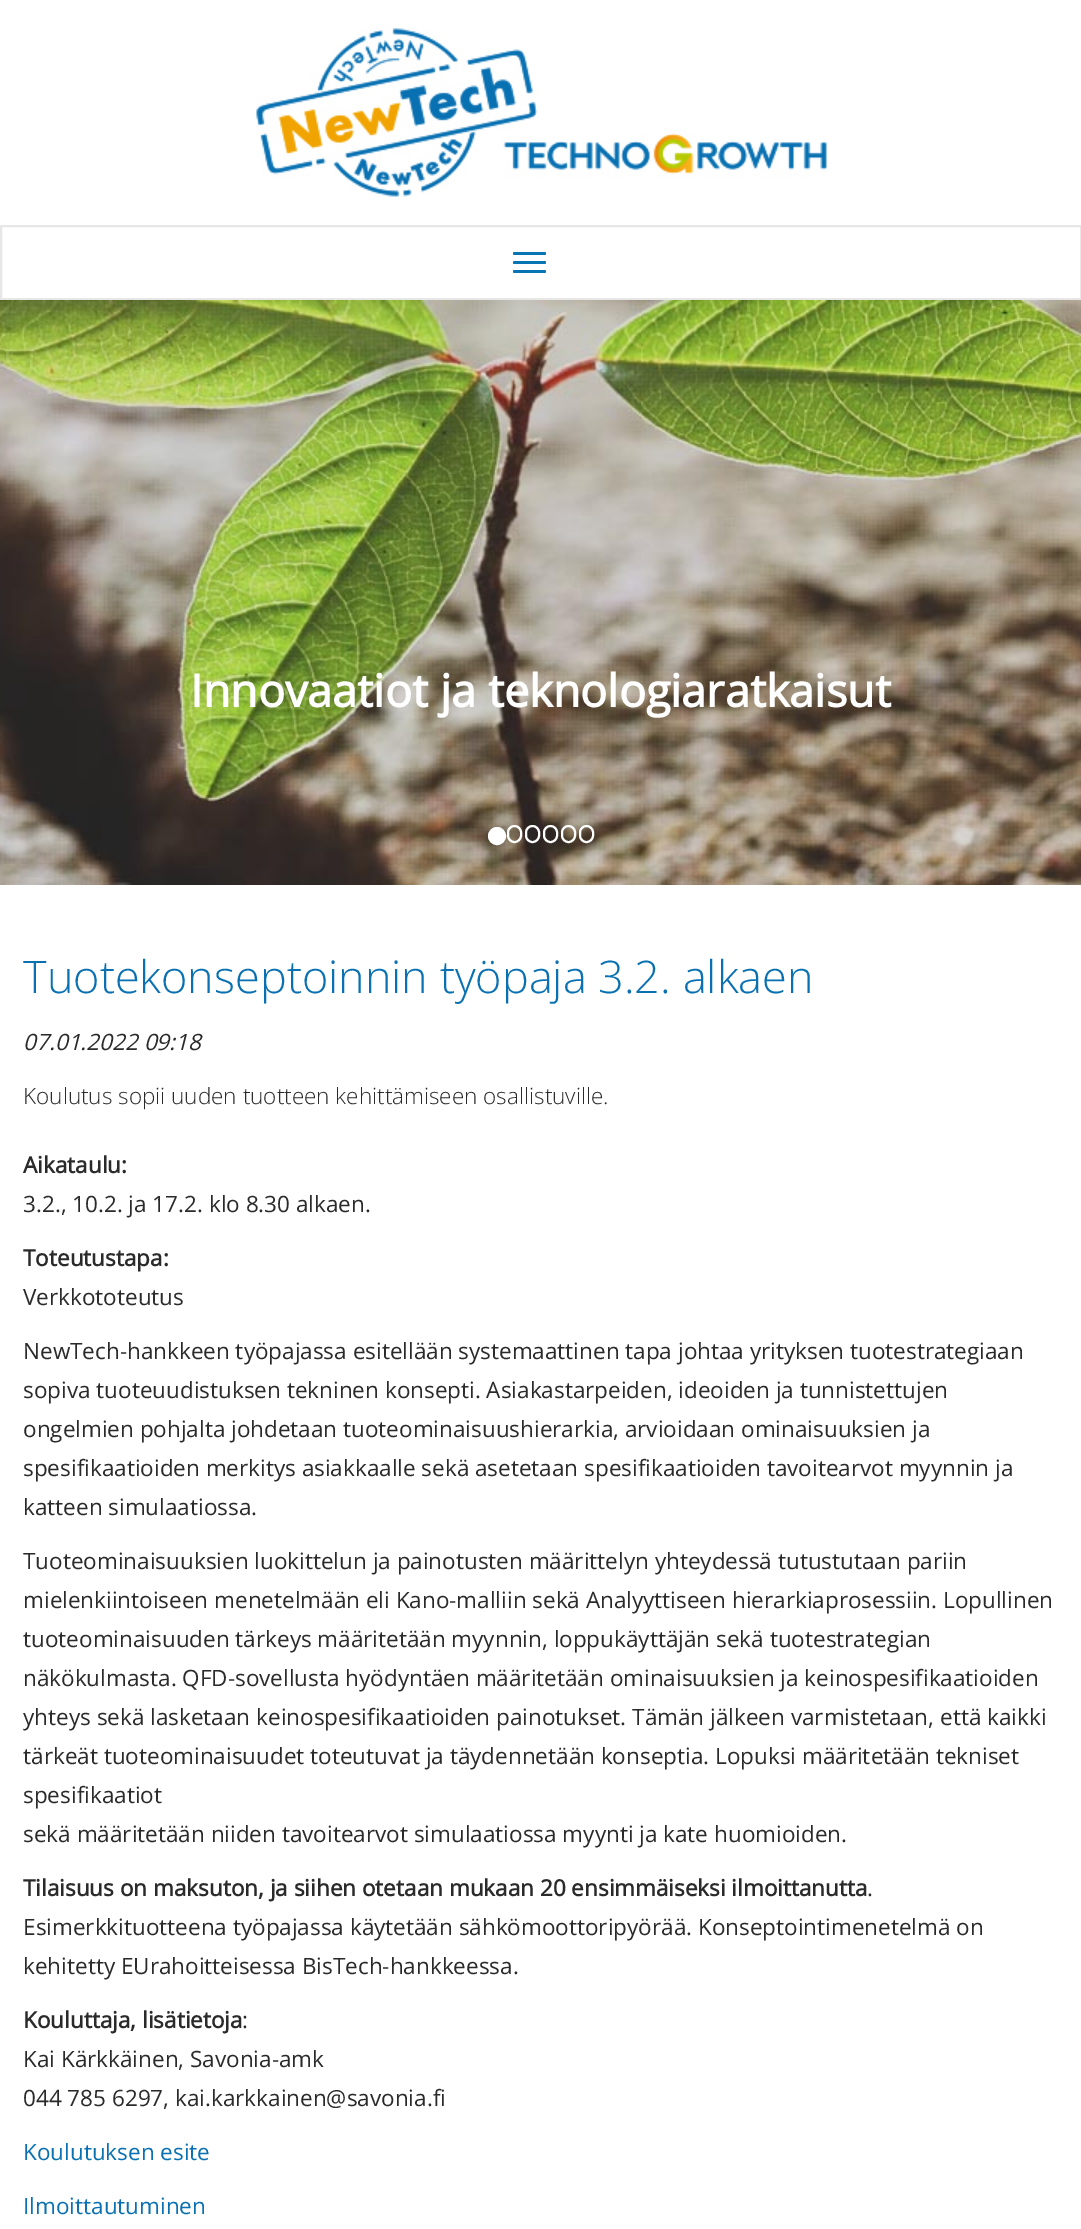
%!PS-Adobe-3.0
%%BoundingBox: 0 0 1081 2229
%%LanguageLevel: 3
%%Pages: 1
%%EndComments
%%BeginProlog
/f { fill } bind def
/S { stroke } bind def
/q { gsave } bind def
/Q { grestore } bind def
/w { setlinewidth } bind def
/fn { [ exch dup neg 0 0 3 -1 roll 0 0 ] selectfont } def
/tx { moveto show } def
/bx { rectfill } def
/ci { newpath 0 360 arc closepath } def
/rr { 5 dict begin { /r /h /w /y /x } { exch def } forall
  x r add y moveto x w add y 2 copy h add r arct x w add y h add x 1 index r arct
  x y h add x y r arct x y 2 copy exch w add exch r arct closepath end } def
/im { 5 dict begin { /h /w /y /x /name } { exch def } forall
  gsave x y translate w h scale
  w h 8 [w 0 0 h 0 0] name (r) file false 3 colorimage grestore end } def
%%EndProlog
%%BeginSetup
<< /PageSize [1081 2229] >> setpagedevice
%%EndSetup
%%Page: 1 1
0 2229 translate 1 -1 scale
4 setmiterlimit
1 setgray
0 0 1081 2229 bx
(image0.raw) 256 28 571 169 im
0.906 setgray
2 w
1 226 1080 73 rectstroke
0.031 0.455 0.706 setrgbcolor
513 252 33 3 1.5 rr f
513 261 33 3 1.5 rr f
513 270 33 3 1.5 rr f
(image1.raw) 0 300 1081 585 im
/OpenSans-Bold 45 fn
1 setgray
(Innovaatiot ja teknologiaratkaisut) 190 707 tx
497 836 8 ci q f Q
S
508 826 13 16 6.5 rr S
526 826 13 16 6.5 rr S
544 826 13 16 6.5 rr S
562 826 13 16 6.5 rr S
580 826 13 16 6.5 rr S
/OpenSans-Light 45 fn
0.035 0.443 0.698 setrgbcolor
(Tuotekonseptoinnin työpaja 3.2. alkaen) 23 993 tx
/OpenSans-Italic 22.5 fn
0.165 setgray
(07.01.2022 09:18) 23 1050 tx
/OpenSans-Light 22.5 fn
(Koulutus sopii uuden tuotteen kehittämiseen osallistuville.) 23 1104 tx
/OpenSans-Bold 22.5 fn
(Aikataulu:) 23 1173 tx
/OpenSans-Regular 22.5 fn
(3.2., 10.2. ja 17.2. klo 8.30 alkaen.) 23 1212 tx
/OpenSans-Bold 22.5 fn
(Toteutustapa:) 23 1266 tx
/OpenSans-Regular 22.5 fn
(Verkkototeutus) 23 1305 tx
(NewTech-hankkeen työpajassa esitellään systemaattinen tapa johtaa yrityksen tuotestrategiaan) 23 1359 tx
(sopiva tuoteuudistuksen tekninen konsepti. Asiakastarpeiden, ideoiden ja tunnistettujen) 23 1398 tx
(ongelmien pohjalta johdetaan tuoteominaisuushierarkia, arvioidaan ominaisuuksien ja) 23 1437 tx
(spesifikaatioiden merkitys asiakkaalle sekä asetetaan spesifikaatioiden tavoitearvot myynnin ja) 23 1476 tx
(katteen simulaatiossa.) 23 1515 tx
(Tuoteominaisuuksien luokittelun ja painotusten määrittelyn yhteydessä tutustutaan pariin) 23 1569 tx
(mielenkiintoiseen menetelmään eli Kano-malliin sekä Analyyttiseen hierarkiaprosessiin. Lopullinen) 23 1608 tx
(tuoteominaisuuden tärkeys määritetään myynnin, loppukäyttäjän sekä tuotestrategian) 23 1647 tx
(näkökulmasta. QFD-sovellusta hyödyntäen määritetään ominaisuuksien ja keinospesifikaatioiden) 23 1686 tx
(yhteys sekä lasketaan keinospesifikaatioiden painotukset. Tämän jälkeen varmistetaan, että kaikki) 23 1725 tx
(tärkeät tuoteominaisuudet toteutuvat ja täydennetään konseptia. Lopuksi määritetään tekniset) 23 1764 tx
(spesifikaatiot) 23 1803 tx
(sekä määritetään niiden tavoitearvot simulaatiossa myynti ja kate huomioiden.) 23 1842 tx
/OpenSans-Bold 22.5 fn
(Tilaisuus on maksuton, ja siihen otetaan mukaan 20 ensimmäiseksi ilmoittanutta) 23 1896 tx
/OpenSans-Regular 22.5 fn
(.) 867 1896 tx
(Esimerkkituotteena työpajassa käytetään sähkömoottoripyörää. Konseptointimenetelmä on) 23 1935 tx
(kehitetty EUrahoitteisessa BisTech-hankkeessa.) 23 1974 tx
/OpenSans-Bold 22.5 fn
(Kouluttaja, lisätietoja) 23 2028 tx
/OpenSans-Regular 22.5 fn
(:) 242 2028 tx
(Kai Kärkkäinen, Savonia-amk) 23 2067 tx
(044 785 6297, kai.karkkainen@savonia.fi) 23 2106 tx
0.035 0.443 0.698 setrgbcolor
(Koulutuksen esite) 23 2160 tx
(Ilmoittautuminen) 23 2214 tx
showpage
%%EOF
